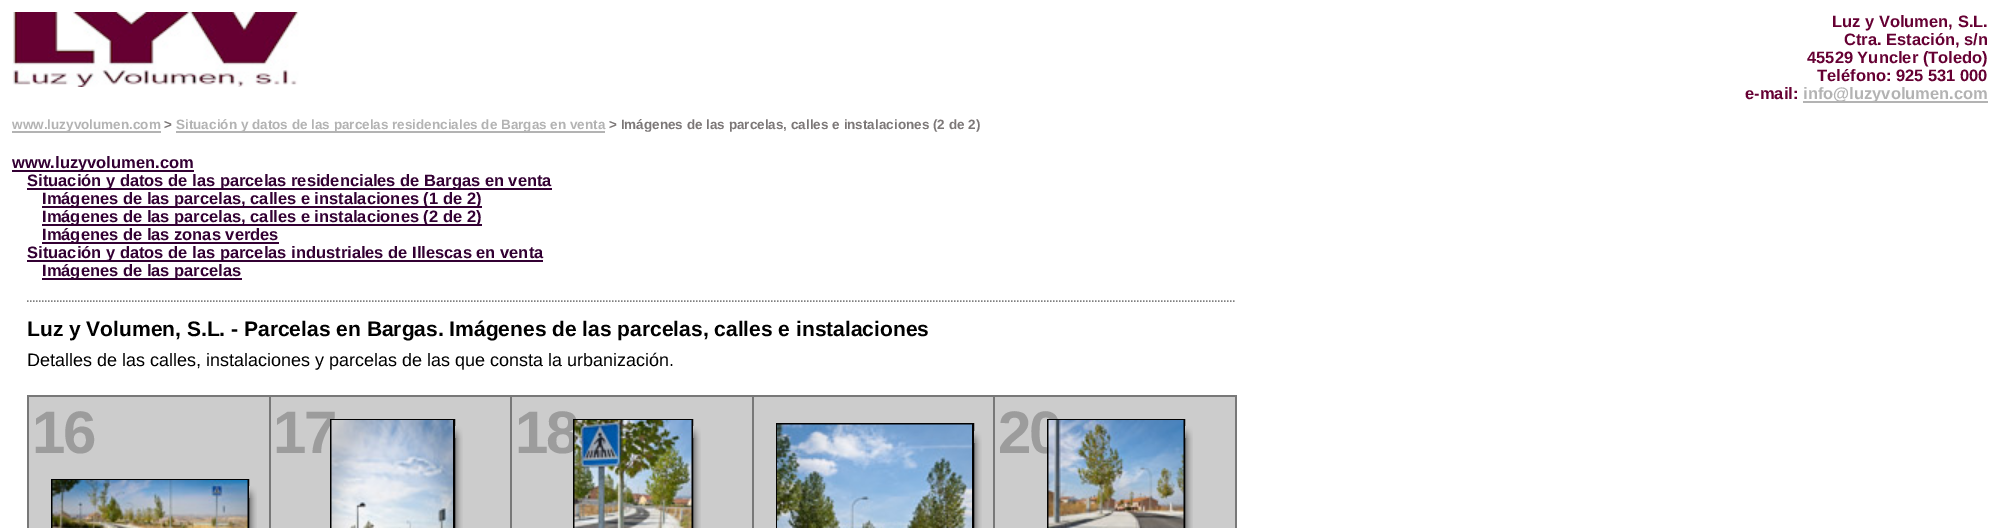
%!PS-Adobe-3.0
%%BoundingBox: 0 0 2016 528
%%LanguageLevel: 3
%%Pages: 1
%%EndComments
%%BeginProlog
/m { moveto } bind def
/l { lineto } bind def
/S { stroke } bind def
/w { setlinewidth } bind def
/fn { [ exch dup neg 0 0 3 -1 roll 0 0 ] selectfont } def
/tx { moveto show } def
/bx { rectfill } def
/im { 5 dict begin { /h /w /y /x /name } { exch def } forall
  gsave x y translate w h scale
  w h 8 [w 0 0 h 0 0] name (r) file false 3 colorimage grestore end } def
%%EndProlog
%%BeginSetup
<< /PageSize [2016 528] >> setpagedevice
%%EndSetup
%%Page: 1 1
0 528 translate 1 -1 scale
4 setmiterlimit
1 setgray
0 0 2016 528 bx
(image0.raw) 12 12 287 75 im
/LiberationSans-Bold 16.5 fn
0.4 0 0.2 setrgbcolor
(Luz y Volumen, S.L.) 1832 27 tx
(Ctra. Estación, s/n) 1844 45 tx
(45529 Yuncler \(Toledo\)) 1807 63 tx
(Teléfono: 925 531 000) 1817 81 tx
(e-mail:) 1745 99 tx
0.702 setgray
1803 101 185 2 bx
(info@luzyvolumen.com) 1803 99 tx
12 131 149 2 bx
/LiberationSans-Bold 13.5 fn
(www.luzyvolumen.com) 12 129 tx
0.486 0.467 0.467 setrgbcolor
(>) 164 129 tx
0.702 setgray
176 131 429 2 bx
(Situación y datos de las parcelas residenciales de Bargas en venta) 176 129 tx
0.486 0.467 0.467 setrgbcolor
(> Imágenes de las parcelas, calles e instalaciones \(2 de 2\)) 609 129 tx
0.2 0 0.2 setrgbcolor
12 170 182 2 bx
/LiberationSans-Bold 16.5 fn
(www.luzyvolumen.com) 12 168 tx
27 188 525 2 bx
(Situación y datos de las parcelas residenciales de Bargas en venta) 27 186 tx
42 206 440 2 bx
(Imágenes de las parcelas, calles e instalaciones \(1 de 2\)) 42 204 tx
42 224 440 2 bx
(Imágenes de las parcelas, calles e instalaciones \(2 de 2\)) 42 222 tx
42 242 237 2 bx
(Imágenes de las zonas verdes) 42 240 tx
27 260 516 2 bx
(Situación y datos de las parcelas industriales de Illescas en venta) 27 258 tx
42 278 200 2 bx
(Imágenes de las parcelas) 42 276 tx
0.498 setgray
1.5 w
[1.5 1.5] 0 setdash
27 301 m 1236 301 l S
/LiberationSans-Bold 21 fn
0 setgray
(Luz y Volumen, S.L. - Parcelas en Bargas. Imágenes de las parcelas, calles e instalaciones) 27 336 tx
/LiberationSans-Regular 18 fn
(Detalles de las calles, instalaciones y parcelas de las que consta la urbanización.) 27 366 tx
0.8 setgray
29 397 240 131 bx
0.471 setgray
27 395 1209 2 bx
27 395 2 133 bx
/LiberationSans-Bold 60 fn
0.612 setgray
32 453 m -2 0 (16) ashow
(image1.raw) 249 498 8 30 im
0 setgray
2 w
[] 0 setdash
52 480 196 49 rectstroke
(image2.raw) 52 480 196 48 im
(image3.raw) 249 486 8 12 im
0.8 setgray
271 397 239 131 bx
0.471 setgray
269 395 2 133 bx
0.612 setgray
273 453 m -2 0 (17) ashow
(image4.raw) 455 438 8 90 im
0 setgray
331 420 123 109 rectstroke
(image5.raw) 331 420 122 108 im
(image6.raw) 455 426 8 12 im
0.8 setgray
512 397 240 131 bx
0.471 setgray
510 395 2 133 bx
0.612 setgray
515 453 m -2 0 (18) ashow
(image7.raw) 693 438 8 90 im
0 setgray
574 420 118 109 rectstroke
(image8.raw) 574 420 118 108 im
(image3.raw) 693 426 8 12 im
0.8 setgray
754 397 239 131 bx
0.471 setgray
752 395 2 133 bx
(image9.raw) 974 442 8 86 im
0 setgray
777 424 196 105 rectstroke
(image10.raw) 777 424 195 104 im
(image11.raw) 974 431 8 12 im
0.8 setgray
995 397 240 131 bx
0.471 setgray
1235 395 2 133 bx
993 395 2 133 bx
0.612 setgray
998 453 m -2 0 (20) ashow
(image7.raw) 1185 438 8 90 im
0 setgray
1048 420 136 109 rectstroke
(image12.raw) 1048 420 136 108 im
(image13.raw) 1185 426 8 12 im
showpage
%%EOF
